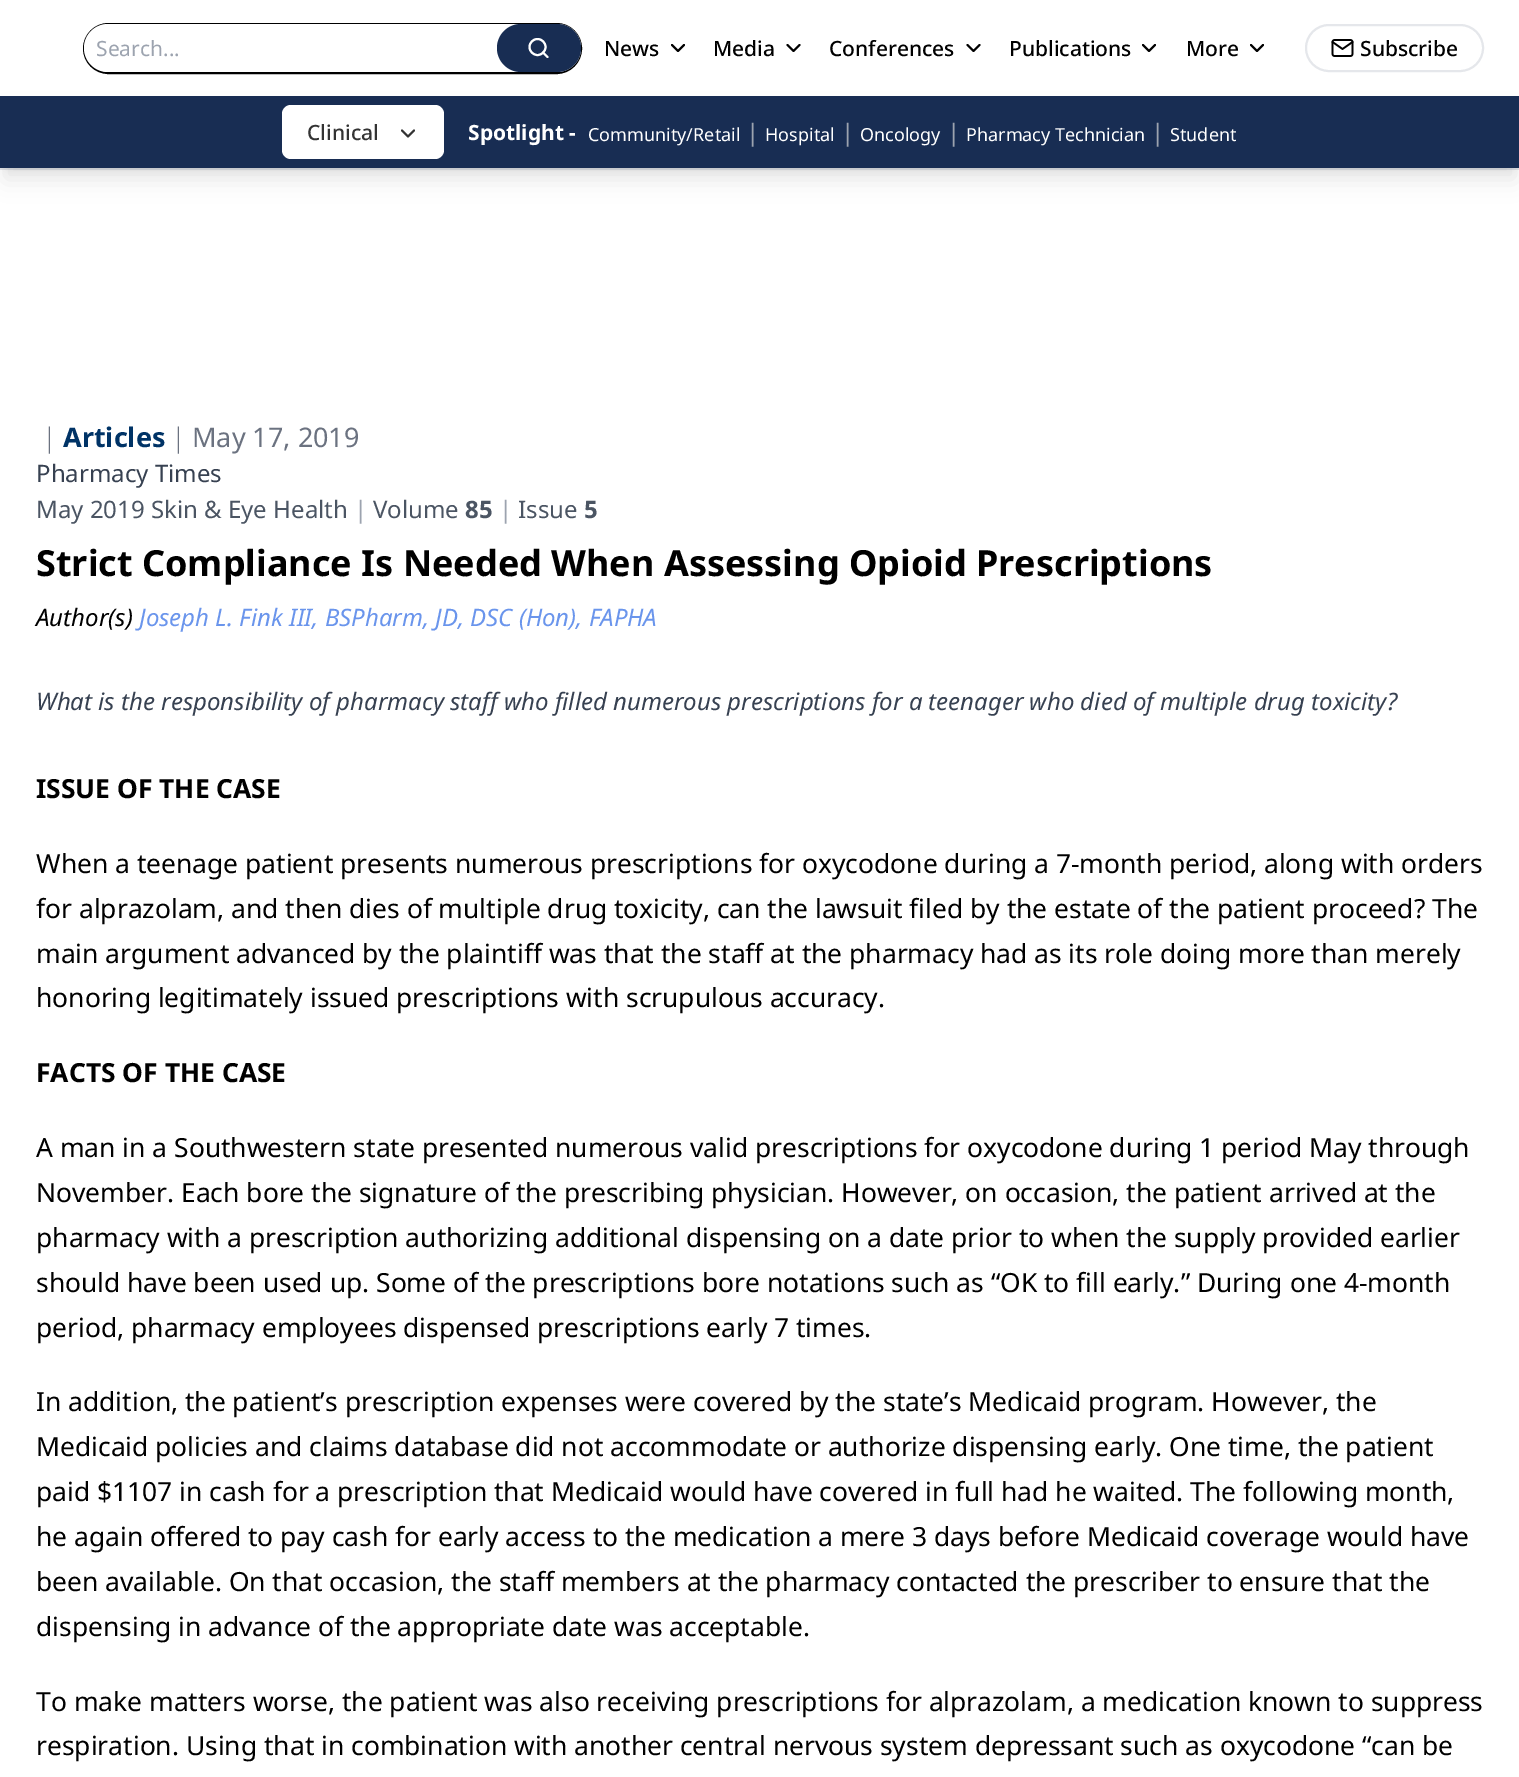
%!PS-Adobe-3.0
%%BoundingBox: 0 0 1519 1777
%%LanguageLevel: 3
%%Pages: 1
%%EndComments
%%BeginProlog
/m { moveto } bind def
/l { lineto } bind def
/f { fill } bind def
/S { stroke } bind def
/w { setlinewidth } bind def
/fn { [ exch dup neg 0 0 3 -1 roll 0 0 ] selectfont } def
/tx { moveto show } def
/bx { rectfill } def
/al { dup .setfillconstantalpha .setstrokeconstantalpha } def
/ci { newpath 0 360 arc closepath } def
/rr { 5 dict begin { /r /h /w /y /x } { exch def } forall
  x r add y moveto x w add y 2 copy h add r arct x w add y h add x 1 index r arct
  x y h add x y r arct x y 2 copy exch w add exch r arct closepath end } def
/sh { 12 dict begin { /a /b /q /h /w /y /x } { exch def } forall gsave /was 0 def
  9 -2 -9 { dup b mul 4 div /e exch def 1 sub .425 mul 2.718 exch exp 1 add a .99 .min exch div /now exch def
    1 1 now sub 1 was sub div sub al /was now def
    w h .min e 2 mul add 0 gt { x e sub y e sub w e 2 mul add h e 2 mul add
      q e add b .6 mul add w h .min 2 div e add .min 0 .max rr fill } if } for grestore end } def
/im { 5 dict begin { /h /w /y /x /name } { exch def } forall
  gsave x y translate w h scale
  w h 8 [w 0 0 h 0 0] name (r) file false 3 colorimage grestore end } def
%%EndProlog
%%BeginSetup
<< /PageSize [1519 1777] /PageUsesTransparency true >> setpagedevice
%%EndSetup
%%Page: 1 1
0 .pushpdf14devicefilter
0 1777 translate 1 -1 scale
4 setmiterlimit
1 setgray
0 0 1519 1777 bx
0.898 0.906 0.922 setrgbcolor
0 168 1519 2 bx
0 setgray
2 w
84 24 497 49 24.5 rr S
1 setgray
84 24 497 48 24 rr f
/NotoSans-Regular 21 fn
0.612 0.639 0.686 setrgbcolor
(Search...) 96 56 tx
0.094 0.176 0.325 setrgbcolor
497 24 84 48 24 rr f
1 setgray
537.5 47 8 ci S
1 setlinecap
1 setlinejoin
547.5 57 m 543 52.5 l S
/NotoSans-Medium 21 fn
0 setgray
(News) 604 56 tx
672 45 m 678 51 l 684 45 l S
(Media) 713 56 tx
787.5 45 m 793.5 51 l 799.5 45 l S
(Conferences) 829 56 tx
967.5 45 m 973.5 51 l 979.5 45 l S
(Publications) 1009 56 tx
1143 45 m 1149 51 l 1155 45 l S
(More) 1186 56 tx
1251 45 m 1257 51 l 1263 45 l S
0.898 0.906 0.922 setrgbcolor
0 setlinecap
0 setlinejoin
1306 25 177 46 23 rr S
(image0.raw) 1331 39 23 18 im
0 setgray
(Subscribe) 1360 56 tx
6 108 1508 60 0 4.5 0.1 sh
5 116 1510 63 0 11 0.1 sh
0.094 0.176 0.325 setrgbcolor
0 96 1519 72 bx
1 setgray
282 105 162 54 9 rr f
0.2 setgray
(Clinical) 307 140 tx
1 setlinecap
1 setlinejoin
402 130.5 m 408 136.5 l 414 130.5 l S
/NotoSans-Bold 21 fn
1 setgray
(Spotlight -) 468 140 tx
/NotoSans-Regular 18 fn
(Community/Retail) 588 141 tx
/NotoSans-Regular 24 fn
0.612 0.639 0.686 setrgbcolor
(|) 746 141 tx
/NotoSans-Regular 18 fn
1 setgray
(Hospital) 765 141 tx
/NotoSans-Regular 24 fn
0.612 0.639 0.686 setrgbcolor
(|) 841 141 tx
/NotoSans-Regular 18 fn
1 setgray
(Oncology) 860 141 tx
/NotoSans-Regular 24 fn
0.612 0.639 0.686 setrgbcolor
(|) 947 141 tx
/NotoSans-Regular 18 fn
1 setgray
(Pharmacy Technician) 966 141 tx
/NotoSans-Regular 24 fn
0.612 0.639 0.686 setrgbcolor
(|) 1151 141 tx
/NotoSans-Regular 18 fn
1 setgray
(Student) 1170 141 tx
/NotoSans-Light 27 fn
0.42 0.447 0.502 setrgbcolor
(|) 42 447 tx
/NotoSans-Bold 27 fn
0 0.2 0.4 setrgbcolor
(Articles) 63 447 tx
/NotoSans-Light 27 fn
0.42 0.447 0.502 setrgbcolor
(|) 171 447 tx
/NotoSans-Regular 27 fn
(May 17, 2019) 192 447 tx
/NotoSans-Regular 24 fn
0.216 0.255 0.318 setrgbcolor
(Pharmacy Times) 36 482 tx
0.294 0.333 0.388 setrgbcolor
(May 2019 Skin & Eye Health) 36 518 tx
0.612 0.639 0.686 setrgbcolor
(|) 354 518 tx
0.294 0.333 0.388 setrgbcolor
(Volume) 373 518 tx
/NotoSans-Bold 24 fn
(85) 465 518 tx
/NotoSans-Regular 24 fn
0.612 0.639 0.686 setrgbcolor
(|) 499 518 tx
0.294 0.333 0.388 setrgbcolor
(Issue) 518 518 tx
/NotoSans-Bold 24 fn
(5) 584 518 tx
/NotoSans-Bold 36 fn
0 setgray
(Strict Compliance Is Needed When Assessing Opioid Prescriptions) 36 576 tx
/NotoSans-Italic 24 fn
(Author\(s\)) 36 626 tx
0.416 0.584 0.925 setrgbcolor
(Joseph L. Fink III, BSPharm, JD, DSC \(Hon\), FAPHA) 139 626 tx
0.216 0.255 0.318 setrgbcolor
(What is the responsibility of pharmacy staff who filled numerous prescriptions for a teenager who died of multiple drug toxicity?) 36 710 tx
/NotoSans-Bold 26.4 fn
0 setgray
(ISSUE OF THE CASE) 36 798 tx
/NotoSans-Regular 26.4 fn
(When a teenage patient presents numerous prescriptions for oxycodone during a 7-month period, along with orders) 36 873 tx
(for alprazolam, and then dies of multiple drug toxicity, can the lawsuit filed by the estate of the patient proceed? The) 36 918 tx
(main argument advanced by the plaintiff was that the staff at the pharmacy had as its role doing more than merely) 36 963 tx
(honoring legitimately issued prescriptions with scrupulous accuracy.) 36 1007 tx
/NotoSans-Bold 26.4 fn
(FACTS OF THE CASE) 36 1082 tx
/NotoSans-Regular 26.4 fn
(A man in a Southwestern state presented numerous valid prescriptions for oxycodone during 1 period May through) 36 1157 tx
(November. Each bore the signature of the prescribing physician. However, on occasion, the patient arrived at the) 36 1202 tx
(pharmacy with a prescription authorizing additional dispensing on a date prior to when the supply provided earlier) 36 1247 tx
(should have been used up. Some of the prescriptions bore notations such as “OK to fill early.” During one 4-month) 36 1292 tx
(period, pharmacy employees dispensed prescriptions early 7 times.) 36 1337 tx
(In addition, the patient’s prescription expenses were covered by the state’s Medicaid program. However, the) 36 1411 tx
(Medicaid policies and claims database did not accommodate or authorize dispensing early. One time, the patient) 36 1456 tx
(paid $1107 in cash for a prescription that Medicaid would have covered in full had he waited. The following month,) 36 1501 tx
(he again offered to pay cash for early access to the medication a mere 3 days before Medicaid coverage would have) 36 1546 tx
(been available. On that occasion, the staff members at the pharmacy contacted the prescriber to ensure that the) 36 1591 tx
(dispensing in advance of the appropriate date was acceptable.) 36 1636 tx
(To make matters worse, the patient was also receiving prescriptions for alprazolam, a medication known to suppress) 36 1711 tx
(respiration. Using that in combination with another central nervous system depressant such as oxycodone “can be) 36 1755 tx
.poppdf14devicefilter showpage
%%EOF
